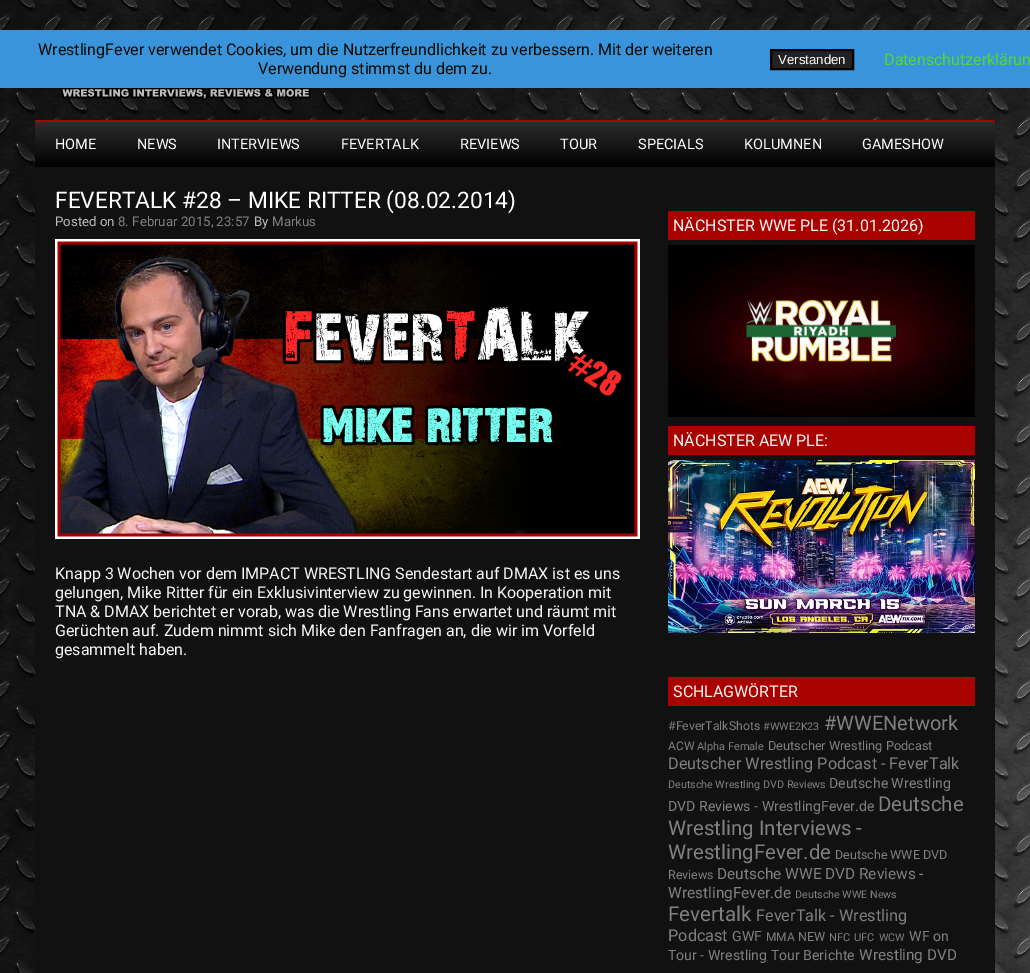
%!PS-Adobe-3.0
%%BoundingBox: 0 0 1030 973
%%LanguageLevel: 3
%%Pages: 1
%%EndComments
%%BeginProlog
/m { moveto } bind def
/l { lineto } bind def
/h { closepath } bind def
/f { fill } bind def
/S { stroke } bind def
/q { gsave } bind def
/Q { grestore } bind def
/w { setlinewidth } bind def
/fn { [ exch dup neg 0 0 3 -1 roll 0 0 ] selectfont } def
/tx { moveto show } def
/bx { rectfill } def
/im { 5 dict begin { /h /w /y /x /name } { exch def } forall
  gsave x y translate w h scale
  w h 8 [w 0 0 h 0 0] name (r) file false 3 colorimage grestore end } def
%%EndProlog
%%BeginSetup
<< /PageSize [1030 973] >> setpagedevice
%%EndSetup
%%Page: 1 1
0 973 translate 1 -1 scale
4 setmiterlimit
1 setgray
0 0 1030 973 bx
(image0.raw) 0 0 1030 973 im
0.224 0.58 0.859 setrgbcolor
0 30 1030 58 bx
/Roboto-Regular 16 fn
0.039 0.035 0 setrgbcolor
(WrestlingFever verwendet Cookies, um die Nutzerfreundlichkeit zu verbessern. Mit der weiteren) 38 55 tx
(Verwendung stimmst du dem zu.) 258 74 tx
0.133 setgray
771 50 m 853 50 l 853 69 l 771 69 l h q f Q
0 setgray
2 w
S
/LiberationSans-Regular 13.25 fn
1 setgray
(Verstanden) 778 64 tx
/Roboto-Regular 16 fn
0.325 0.847 0.192 setrgbcolor
(Datenschutzerklärun) 884 65 tx
(image1.raw) 60 88 251 13 im
0.067 setgray
35 167 960 806 bx
0.663 0 0 setrgbcolor
35 120 960 2 bx
q 35 122 m 995 122 l 995 167 l 35 167 l h clip newpath
<< /ShadingType 2 /ColorSpace /DeviceRGB /Coords [515 122 515 167] /Extend [true true] /Function << /FunctionType 2 /Domain [0 1] /C0 [0.176 0.176 0.176] /C1 [0 0 0] /N 1 >> >> shfill Q
/Roboto-Regular 14.5 fn
1 setgray
(HOME) 55 149 tx
(NEWS) 137 149 tx
(INTERVIEWS) 217 149 tx
(FEVERTALK) 341 149 tx
(REVIEWS) 460 149 tx
(TOUR) 560 149 tx
(SPECIALS) 638 149 tx
(KOLUMNEN) 744 149 tx
(GAMESHOW) 862 149 tx
/Roboto-Regular 22.7 fn
(FEVERTALK #28 – MIKE RITTER \(08.02.2014\)) 55 208 tx
/Roboto-Regular 13.25 fn
0.733 setgray
(Posted on) 55 226 tx
0.502 setgray
(8. Februar 2015, 23:57) 118 226 tx
0.733 setgray
(By) 254 226 tx
0.502 setgray
(Markus) 272 226 tx
(image2.raw) 55 239 585 300 im
/Roboto-Regular 16 fn
0.961 setgray
(Knapp 3 Wochen vor dem IMPACT WRESTLING Sendestart auf DMAX ist es uns) 55 579 tx
(gelungen, Mike Ritter für ein Exklusivinterview zu gewinnen. In Kooperation mit) 55 598 tx
(TNA & DMAX berichtet er vorab, was die Wrestling Fans erwartet und räumt mit) 55 617 tx
(Gerüchten auf. Zudem nimmt sich Mike den Fanfragen an, die wir im Vorfeld) 55 636 tx
(gesammelt haben.) 55 655 tx
0.663 0 0 setrgbcolor
668 211 307 29 bx
0.961 setgray
(NÄCHSTER WWE PLE \(31.01.2026\)) 673 231 tx
(image3.raw) 668 245 307 172 im
0.663 0 0 setrgbcolor
668 426 307 29 bx
0.961 setgray
(NÄCHSTER AEW PLE:) 673 446 tx
(image4.raw) 668 460 307 173 im
0.663 0 0 setrgbcolor
668 677 307 29 bx
0.961 setgray
(SCHLAGWÖRTER) 673 697 tx
/Roboto-Regular 12.25 fn
0.502 setgray
(#FeverTalkShots) 668 730 tx
/Roboto-Regular 10.7 fn
(#WWE2K23) 763 730 tx
/Roboto-Regular 20 fn
(#WWENetwork) 824 730 tx
/Roboto-Regular 12 fn
(ACW) 668 750 tx
/Roboto-Regular 11 fn
(Alpha Female) 697 750 tx
/Roboto-Regular 12.75 fn
(Deutscher Wrestling Podcast) 768 750 tx
/Roboto-Regular 16.2 fn
(Deutscher Wrestling Podcast - FeverTalk) 668 769 tx
/Roboto-Regular 10.7 fn
(Deutsche Wrestling DVD Reviews) 668 788 tx
/Roboto-Regular 14.1 fn
(Deutsche Wrestling) 829 788 tx
(DVD Reviews - WrestlingFever.de) 668 811 tx
/Roboto-Regular 20.4 fn
(Deutsche) 878 811 tx
(Wrestling Interviews -) 668 835 tx
(WrestlingFever.de) 668 859 tx
/Roboto-Regular 12.5 fn
(Deutsche WWE DVD) 835 859 tx
(Reviews) 668 879 tx
/Roboto-Regular 15.4 fn
(Deutsche WWE DVD Reviews -) 717 879 tx
(WrestlingFever.de) 668 898 tx
/Roboto-Regular 10.7 fn
(Deutsche WWE News) 795 898 tx
/Roboto-Regular 20.5 fn
(Fevertalk) 668 921 tx
/Roboto-Regular 16.25 fn
(FeverTalk - Wrestling) 756 921 tx
(Podcast) 668 941 tx
/Roboto-Regular 14 fn
(GWF) 732 941 tx
/Roboto-Regular 12 fn
(MMA) 766 941 tx
/Roboto-Regular 12.5 fn
(NEW) 798 941 tx
/Roboto-Regular 11 fn
(NFC) 829 941 tx
(UFC) 854 941 tx
/Roboto-Regular 10.7 fn
(WCW) 879 941 tx
/Roboto-Regular 14.1 fn
(WF on) 909 941 tx
(Tour - Wrestling Tour Berichte) 668 960 tx
/Roboto-Regular 15.25 fn
(Wrestling DVD) 859 960 tx
showpage
%%EOF
